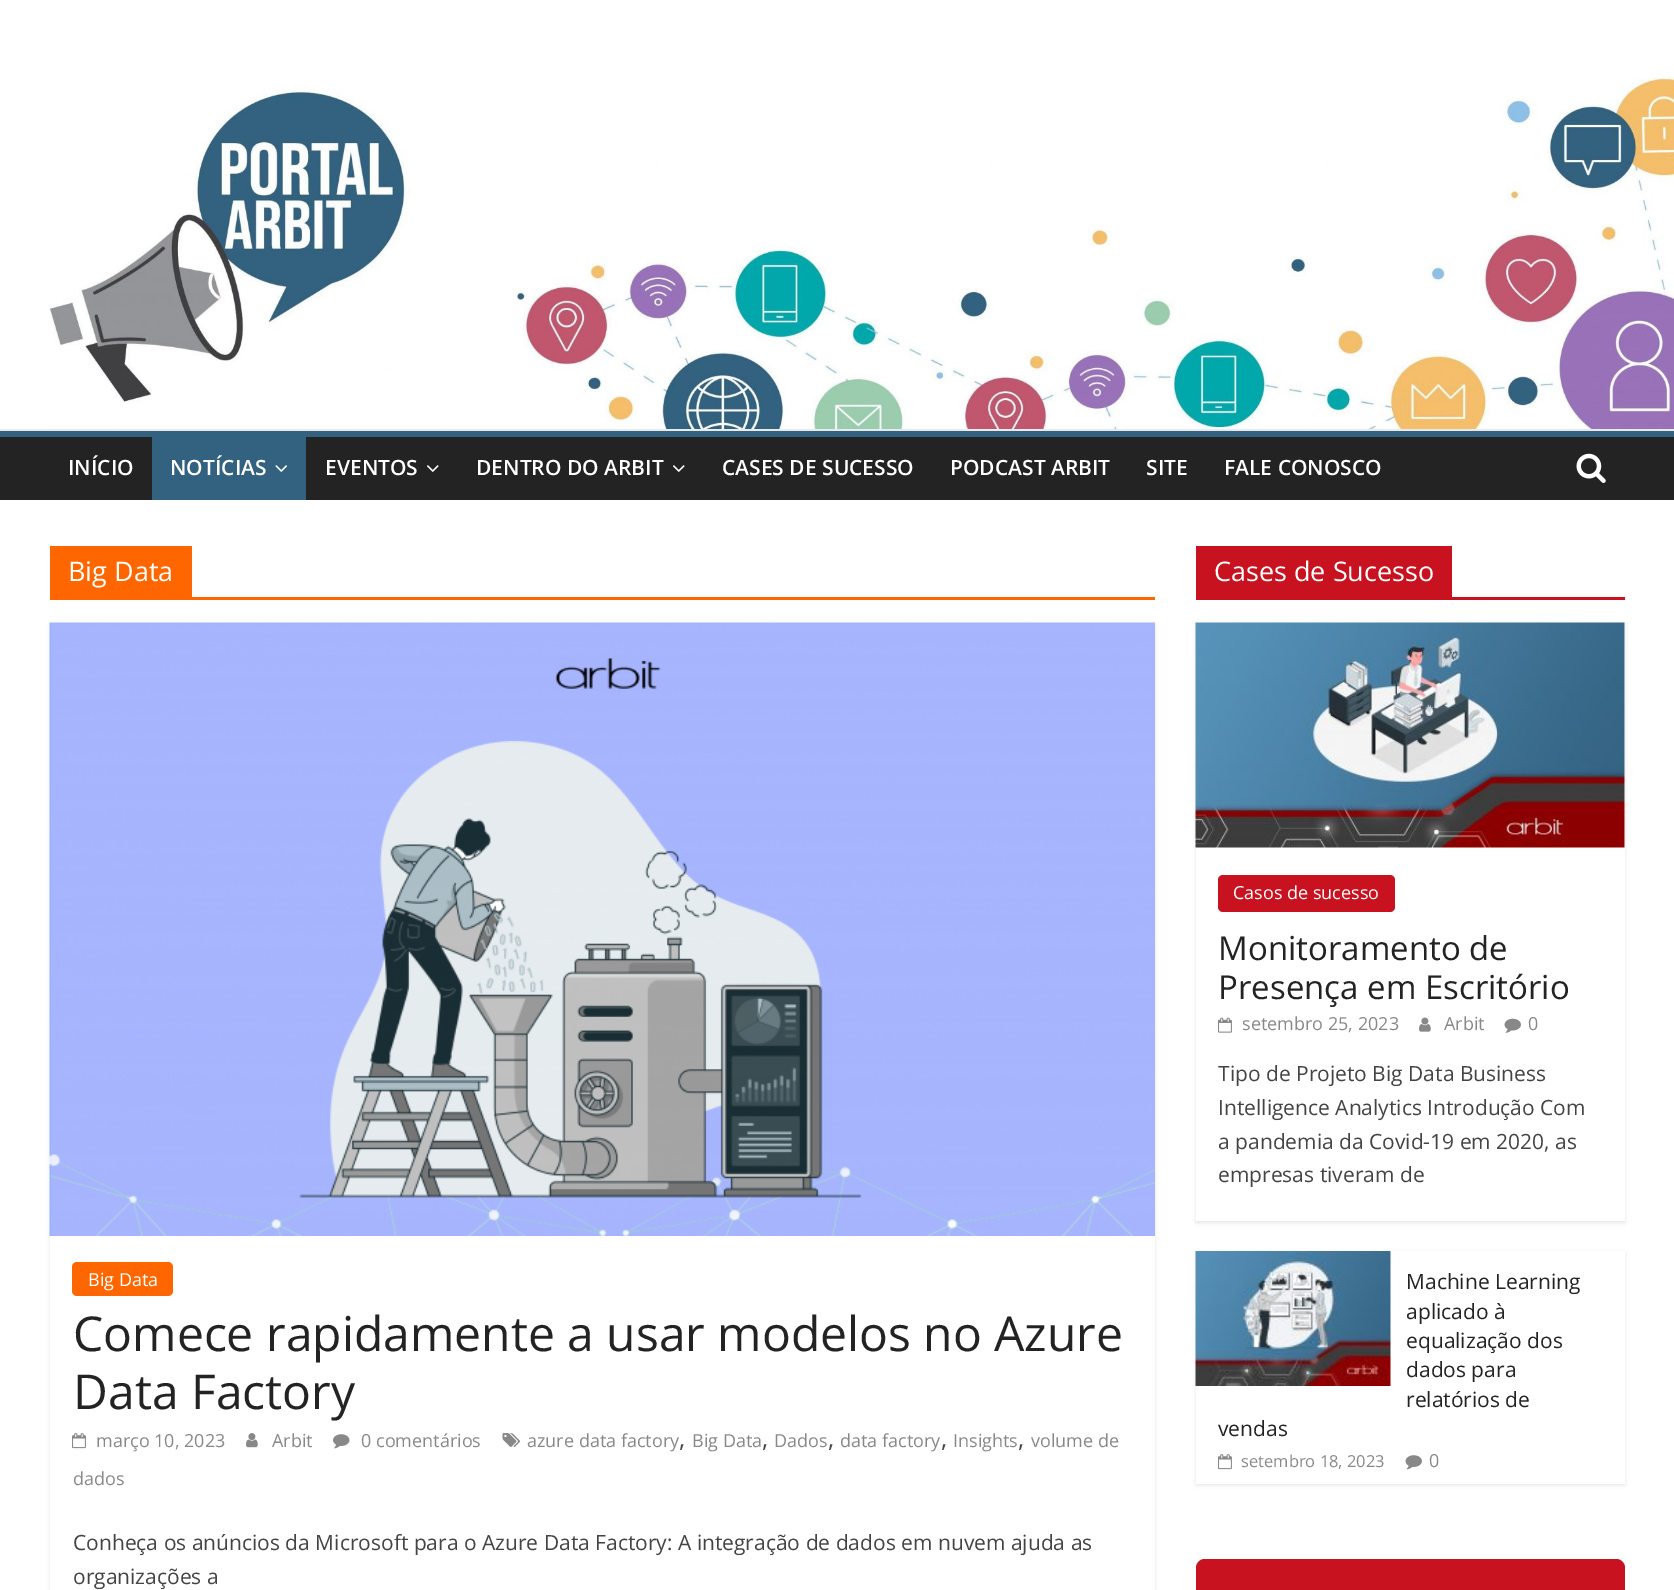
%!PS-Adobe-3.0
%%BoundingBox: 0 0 1674 1590
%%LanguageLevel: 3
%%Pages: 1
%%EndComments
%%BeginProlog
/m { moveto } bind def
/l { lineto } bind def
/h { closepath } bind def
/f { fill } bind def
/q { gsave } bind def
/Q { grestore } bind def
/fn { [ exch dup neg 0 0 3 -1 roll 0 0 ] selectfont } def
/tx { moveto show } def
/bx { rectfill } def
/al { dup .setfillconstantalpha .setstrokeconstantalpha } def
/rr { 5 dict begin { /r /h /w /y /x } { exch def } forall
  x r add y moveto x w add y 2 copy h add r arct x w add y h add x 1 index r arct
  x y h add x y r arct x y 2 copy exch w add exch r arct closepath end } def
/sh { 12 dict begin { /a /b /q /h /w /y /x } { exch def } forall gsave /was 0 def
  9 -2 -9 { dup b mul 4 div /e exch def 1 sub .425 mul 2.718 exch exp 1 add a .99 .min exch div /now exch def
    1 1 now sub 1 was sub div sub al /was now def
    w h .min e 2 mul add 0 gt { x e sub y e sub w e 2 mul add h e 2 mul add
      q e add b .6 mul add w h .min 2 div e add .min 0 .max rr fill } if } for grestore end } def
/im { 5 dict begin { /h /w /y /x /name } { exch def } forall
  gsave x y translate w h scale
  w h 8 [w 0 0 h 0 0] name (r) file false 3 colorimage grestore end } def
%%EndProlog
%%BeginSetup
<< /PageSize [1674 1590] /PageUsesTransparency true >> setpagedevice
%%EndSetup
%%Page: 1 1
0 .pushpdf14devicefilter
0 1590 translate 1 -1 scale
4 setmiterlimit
1 setgray
0 0 1674 1590 bx
(image0.raw) 48 77 1626 352 im
0.918 setgray
0 429 1674 2 bx
0.137 setgray
0 437 1674 63 bx
0.2 0.38 0.502 setrgbcolor
0 431 1674 6 bx
/OpenSans-SemiBold 21 fn
1 setgray
(INÍCIO) 68 475 tx
0.2 0.38 0.502 setrgbcolor
152 437 154 63 bx
1 setgray
(NOTÍCIAS) 170 475 tx
(image1.raw) 275 465 12 7 im
(EVENTOS) 325 475 tx
(image2.raw) 427 465 12 7 im
(DENTRO DO ARBIT) 476 475 tx
(image2.raw) 673 465 12 7 im
(CASES DE SUCESSO) 722 475 tx
(PODCAST ARBIT) 950 475 tx
(SITE) 1146 475 tx
(FALE CONOSCO) 1224 475 tx
(image3.raw) 1576 453 30 30 im
1 0.4 0 setrgbcolor
50 597 1105 3 bx
50 546 142 51 bx
/OpenSans-Regular 27 fn
1 setgray
(Big Data) 68 581 tx
q
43 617 m 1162 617 l 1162 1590 l 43 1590 l h 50 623 m 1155 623 l 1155 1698 l 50 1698 l h eoclip newpath
0 setgray
50 624 1105 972 0 2 0.1 sh
Q
(image4.raw) 49 622 1106 614 im
1 0.4 0 setrgbcolor
72 1262 101 34 5 rr f
/OpenSans-Regular 18 fn
1 setgray
(Big Data) 88 1286 tx
/OpenSans-Regular 48 fn
0.137 setgray
(Comece rapidamente a usar modelos no Azure) 73 1351 tx
(Data Factory) 73 1409 tx
(image5.raw) 502 1433 18 14 im
/OpenSans-Regular 18 fn
0.533 setgray
(azure data factory) 527 1447 tx
/OpenSans-Regular 24 fn
0.267 setgray
(,) 679 1447 tx
/OpenSans-Regular 18 fn
0.533 setgray
(Big Data) 692 1447 tx
/OpenSans-Regular 24 fn
0.267 setgray
(,) 762 1447 tx
/OpenSans-Regular 18 fn
0.533 setgray
(Dados) 774 1447 tx
/OpenSans-Regular 24 fn
0.267 setgray
(,) 828 1447 tx
/OpenSans-Regular 18 fn
0.533 setgray
(data factory) 840 1447 tx
/OpenSans-Regular 24 fn
0.267 setgray
(,) 941 1447 tx
/OpenSans-Regular 18 fn
0.533 setgray
(Insights) 953 1447 tx
/OpenSans-Regular 24 fn
0.267 setgray
(,) 1018 1447 tx
/OpenSans-Regular 18 fn
0.533 setgray
(volume de) 1031 1447 tx
(dados) 73 1485 tx
(image6.raw) 72 1433 14 16 im
(março 10, 2023) 96 1447 tx
(image7.raw) 246 1433 12 15 im
(Arbit) 272 1447 tx
(image8.raw) 333 1434 17 15 im
(0 comentários) 361 1447 tx
/OpenSans-Regular 21 fn
0.267 setgray
(Conheça os anúncios da Microsoft para o Azure Data Factory: A integração de dados em nuvem ajuda as) 73 1550 tx
(organizações a) 73 1584 tx
0.784 0.071 0.122 setrgbcolor
1196 597 429 3 bx
1196 546 256 51 bx
/OpenSans-Regular 27 fn
1 setgray
(Cases de Sucesso) 1214 581 tx
0 setgray
1196 624 429 599 0 2 0.1 sh
1 setgray
1196 623 429 598 bx
(image9.raw) 1195 622 430 226 im
0.784 0.071 0.122 setrgbcolor
1218 875 177 37 5 rr f
/OpenSans-Regular 18 fn
1 setgray
(Casos de sucesso) 1233 899 tx
/OpenSans-Regular 33 fn
0.137 setgray
(Monitoramento de) 1218 960 tx
(Presença em Escritório) 1218 999 tx
(image10.raw) 1218 1017 14 16 im
/OpenSans-Regular 18 fn
0.533 setgray
(setembro 25, 2023) 1242 1030 tx
(image11.raw) 1419 1017 12 15 im
(Arbit) 1444 1030 tx
(image12.raw) 1504 1018 17 15 im
(0) 1528 1030 tx
/OpenSans-Regular 21 fn
0.267 setgray
(Tipo de Projeto Big Data Business) 1218 1081 tx
(Intelligence Analytics Introdução Com) 1218 1115 tx
(a pandemia da Covid-19 em 2020, as) 1218 1149 tx
(empresas tiveram de) 1218 1182 tx
0 setgray
1196 1253 429 232 0 2 0.1 sh
1 setgray
1196 1251 429 233 bx
(image13.raw) 1195 1251 196 135 im
0.137 setgray
(Machine Learning) 1406 1289 tx
(aplicado à) 1406 1319 tx
(equalização dos) 1406 1348 tx
(dados para) 1406 1377 tx
(relatórios de) 1406 1407 tx
(vendas) 1218 1436 tx
(image6.raw) 1218 1454 14 16 im
/OpenSans-Regular 16.5 fn
0.533 setgray
(setembro 18, 2023) 1241 1467 tx
(image14.raw) 1405 1455 17 15 im
/OpenSans-Regular 18 fn
(0) 1429 1467 tx
0.784 0.071 0.122 setrgbcolor
1196 1559 429 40 9 rr f
.poppdf14devicefilter showpage
%%EOF
